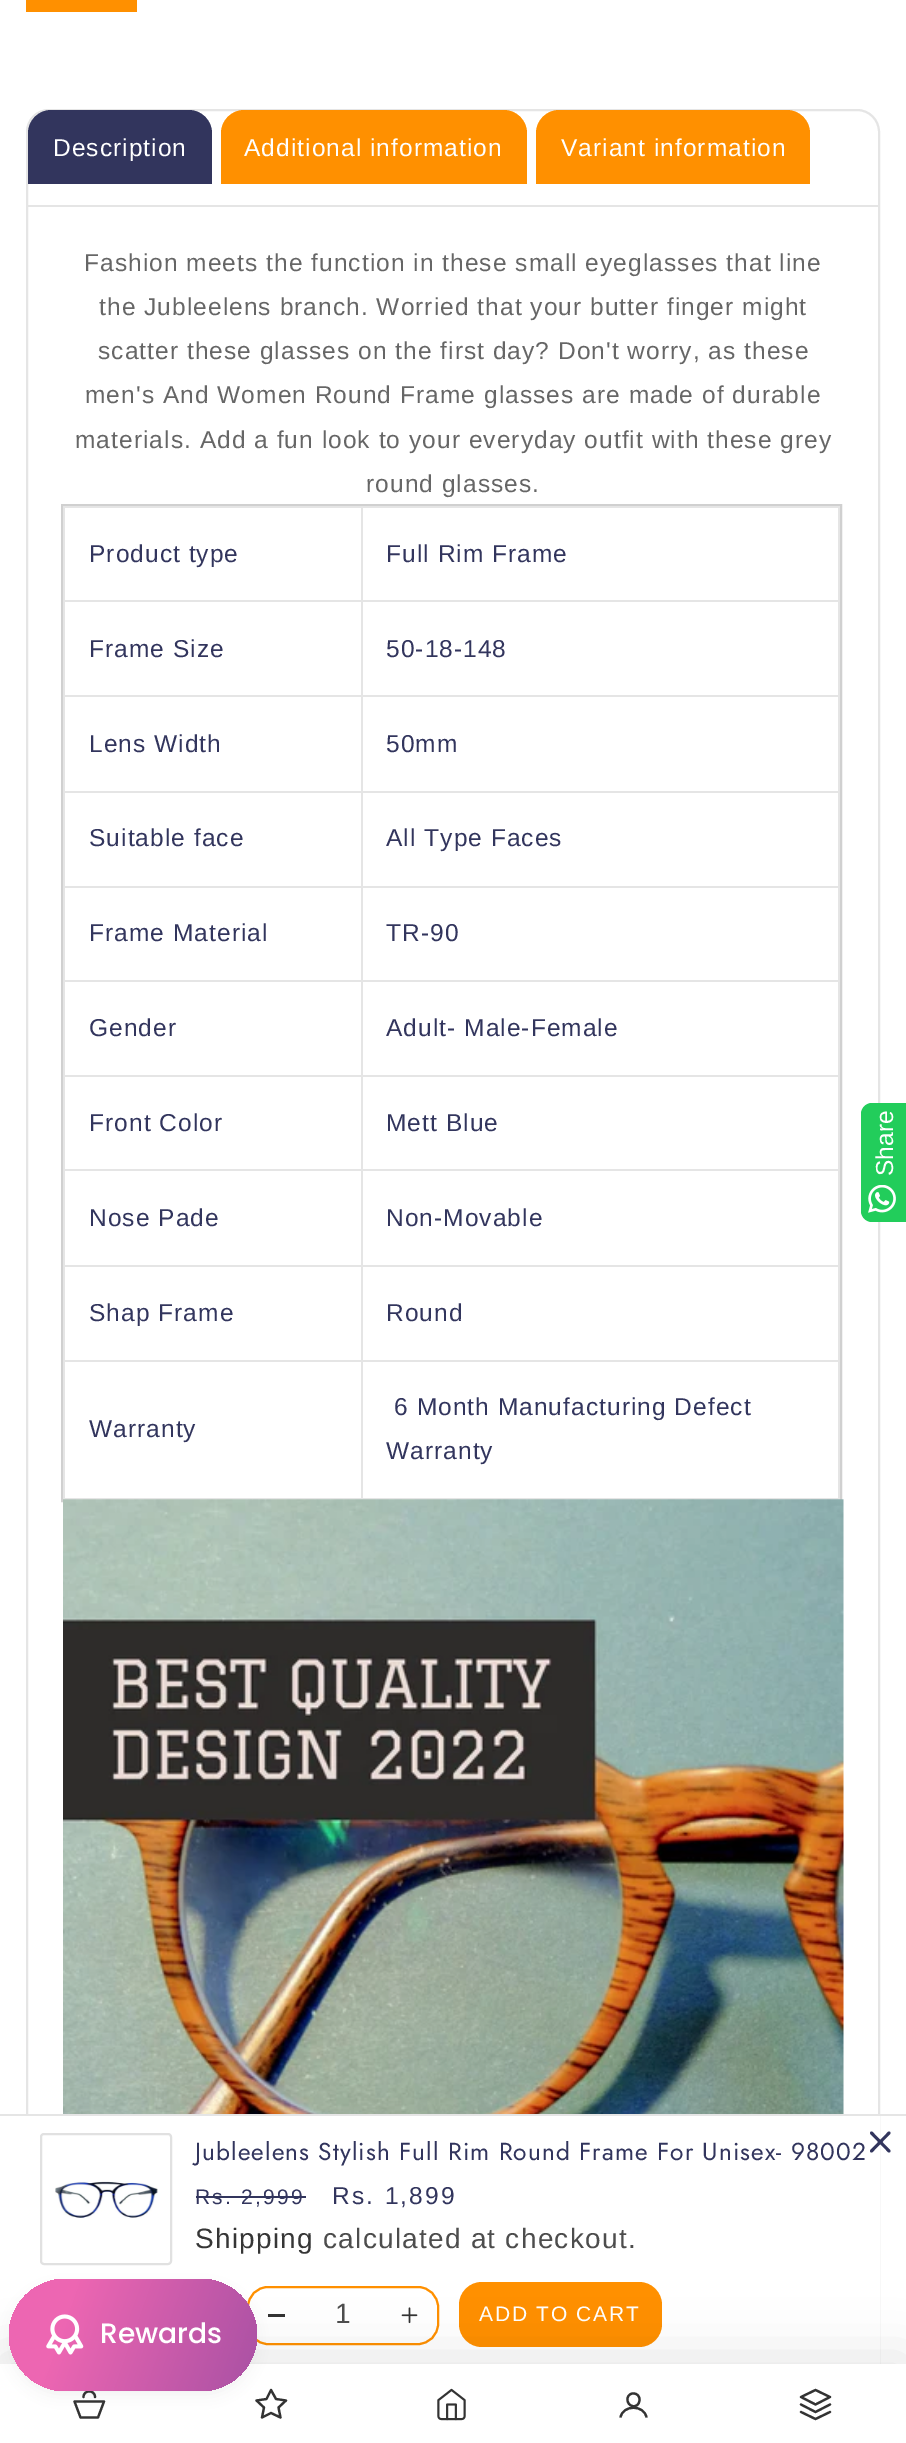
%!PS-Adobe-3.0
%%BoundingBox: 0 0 906 2443
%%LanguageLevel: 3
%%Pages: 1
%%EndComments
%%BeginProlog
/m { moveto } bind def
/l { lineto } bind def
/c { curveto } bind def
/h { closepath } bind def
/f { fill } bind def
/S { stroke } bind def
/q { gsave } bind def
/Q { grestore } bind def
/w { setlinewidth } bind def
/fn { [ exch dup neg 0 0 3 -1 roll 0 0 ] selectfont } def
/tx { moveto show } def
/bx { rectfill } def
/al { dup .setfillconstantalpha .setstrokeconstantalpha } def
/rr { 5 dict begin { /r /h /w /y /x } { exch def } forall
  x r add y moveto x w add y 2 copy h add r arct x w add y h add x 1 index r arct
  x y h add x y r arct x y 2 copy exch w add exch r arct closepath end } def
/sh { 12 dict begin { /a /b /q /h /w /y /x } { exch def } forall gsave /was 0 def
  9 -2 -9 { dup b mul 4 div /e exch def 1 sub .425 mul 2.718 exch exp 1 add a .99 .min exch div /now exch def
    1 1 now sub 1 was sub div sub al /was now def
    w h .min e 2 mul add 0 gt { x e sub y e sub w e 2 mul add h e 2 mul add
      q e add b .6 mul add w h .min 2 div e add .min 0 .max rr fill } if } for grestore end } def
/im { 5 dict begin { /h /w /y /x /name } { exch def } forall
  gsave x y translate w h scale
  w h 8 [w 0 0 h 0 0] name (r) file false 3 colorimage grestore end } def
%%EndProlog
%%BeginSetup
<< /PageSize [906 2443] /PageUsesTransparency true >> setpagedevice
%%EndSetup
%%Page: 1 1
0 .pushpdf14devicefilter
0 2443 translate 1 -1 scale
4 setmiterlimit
1 setgray
0 0 906 2443 bx
1 0.565 0 setrgbcolor
26 0 111 12 bx
0.898 setgray
2 w
27 110 852 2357 22 rr S
q
28 110 851 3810 21 rr clip newpath
0.196 0.208 0.365 setrgbcolor
51 110 m 189 110 l 201.5 110 212 120.5 212 133 c 212 184 l 28 184 l 28 133 l 28 120.5 38.5 110 51 110 c h f
Q
/LiberationSans-Regular 24.5 fn
1 setgray
53 156 m 1.05 0 (Description) ashow
1 0.565 0 setrgbcolor
244 110 m 504 110 l 516.5 110 527 120.5 527 133 c 527 184 l 221 184 l 221 133 l 221 120.5 231.5 110 244 110 c h f
1 setgray
244 156 m 1.05 0 (Additional information) ashow
1 0.565 0 setrgbcolor
559 110 m 787 110 l 799.5 110 810 120.5 810 133 c 810 184 l 536 184 l 536 133 l 536 120.5 546.5 110 559 110 c h f
1 setgray
561 156 m 1.05 0 (Variant information) ashow
0.898 setgray
28 205 851 2 bx
0.4 setgray
84 271 m 1.05 0 (Fashion meets the function in these small eyeglasses that line) ashow
99 315 m 1.05 0 (the Jubleelens branch. Worried that your butter finger might) ashow
98 359 m 1.05 0 (scatter these glasses on the first day? Don't worry, as these) ashow
85 403 m 1.05 0 (men's And Women Round Frame glasses are made of durable) ashow
75 448 m 1.05 0 (materials. Add a fun look to your everyday outfit with these grey) ashow
366 492 m 1.05 0 (round glasses.) ashow
0.816 setgray
62 505 779 996 rectstroke
0.898 setgray
361 506 479 2 bx
361 600 479 2 bx
361 695 479 2 bx
361 791 479 2 bx
361 886 479 2 bx
361 980 479 2 bx
361 1075 479 2 bx
361 1169 479 2 bx
361 1265 479 2 bx
361 1360 479 2 bx
838 1360 2 140 bx
361 1498 479 2 bx
361 1360 2 140 bx
63 1360 299 2 bx
361 1265 2 97 bx
63 1265 299 2 bx
361 1169 2 98 bx
63 1169 299 2 bx
361 1075 2 96 bx
63 1075 299 2 bx
361 980 2 96 bx
63 980 299 2 bx
361 886 2 96 bx
63 886 299 2 bx
361 791 2 96 bx
63 791 299 2 bx
361 695 2 98 bx
63 695 299 2 bx
361 600 2 97 bx
63 600 299 2 bx
361 506 2 96 bx
63 506 299 2 bx
63 1498 299 2 bx
63 1360 2 140 bx
63 1265 2 97 bx
63 1169 2 98 bx
63 1075 2 96 bx
63 980 2 96 bx
63 886 2 96 bx
63 791 2 96 bx
63 695 2 98 bx
63 600 2 97 bx
63 506 2 96 bx
0.196 0.208 0.365 setrgbcolor
89 562 m 1.05 0 (Product type) ashow
0.898 setgray
838 1265 2 97 bx
838 1169 2 98 bx
838 1075 2 96 bx
838 980 2 96 bx
838 886 2 96 bx
838 791 2 96 bx
838 695 2 98 bx
838 600 2 97 bx
838 506 2 96 bx
0.196 0.208 0.365 setrgbcolor
386 562 m 1.05 0 (Full Rim Frame) ashow
89 657 m 1.05 0 (Frame Size) ashow
386 657 m 1.05 0 (50-18-148) ashow
89 752 m 1.05 0 (Lens Width) ashow
386 752 m 1.05 0 (50mm) ashow
89 846 m 1.05 0 (Suitable face) ashow
386 846 m 1.05 0 (All Type Faces) ashow
89 941 m 1.05 0 (Frame Material) ashow
386 941 m 1.05 0 (TR-90) ashow
89 1036 m 1.05 0 (Gender) ashow
386 1036 m 1.05 0 (Adult- Male-Female) ashow
89 1131 m 1.05 0 (Front Color) ashow
386 1131 m 1.05 0 (Mett Blue) ashow
89 1226 m 1.05 0 (Nose Pade) ashow
386 1226 m 1.05 0 (Non-Movable) ashow
89 1321 m 1.05 0 (Shap Frame) ashow
386 1321 m 1.05 0 (Round) ashow
89 1437 m 1.05 0 (Warranty) ashow
394 1415 m 1.05 0 (6 Month Manufacturing Defect) ashow
386 1459 m 1.05 0 (Warranty) ashow
(image0.raw) 63 1499 781 615 im
1 setgray
26 2116 854 248 bx
0.898 setgray
0 2114 906 2 bx
0.882 setgray
41 2134 130 130 3 rr S
(image1.raw) 55 2181 103 37 im
/Jost-Regular 24.5 fn
0.196 0.208 0.365 setrgbcolor
195 2160 m 1.05 0 (Jubleelens Stylish Full Rim Round Frame For Unisex- 98002) ashow
/LiberationSans-Regular 21 fn
195 2204 m 2.25 0 (Rs. 2,999) ashow
196 2196 110 2 bx
/LiberationSans-Regular 24.5 fn
332 2204 m 2.25 0 (Rs. 1,899) ashow
/LiberationSans-Regular 28 fn
0.212 setgray
195 2248 m 1.25 0 (Shipping) ashow
0.302 setgray
323 2248 m 1.25 0 (calculated at checkout.) ashow
0.196 0.208 0.365 setrgbcolor
2.9 w
1 setlinecap
1 setlinejoin
889 2133 m 871.5 2151 l 871.5 2133 m 889 2151 l S
0.2 setgray
268 2314 17 3 bx
(image2.raw) 401 2307 17 17 im
1 0.565 0 setrgbcolor
2 w
0 setlinecap
0 setlinejoin
248 2287 190 57 20 rr S
0.302 setgray
(1) 335 2323 tx
1 0.565 0 setrgbcolor
459 2282 203 65 23 rr f
/LiberationSans-Regular 21 fn
1 setgray
479 2321 m 1.75 0 (ADD TO CART) ashow
0.133 0.804 0.357 setrgbcolor
872 1103 m 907 1103 l 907 1222 l 872 1222 l 866 1222 861 1217 861 1211 c 861 1114 l 861 1108 866 1103 872 1103 c h f
/LiberationSans-Regular 24.5 fn
1 setgray
q 893 1176 translate -90 rotate 0 0 m (Share) show Q
(image3.raw) 868 1185 28 28 im
0 setgray
0 2356 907 78 0 26 0.1 sh
1 setgray
0 2364 906 79 bx
0.2 setgray
2.2 w
1 setlinecap
1 setlinejoin
74.5 2401.5 m 104 2401.5 l 98 2417.5 l 80.5 2417.5 l h 95 2397 m 95 2389.5 83.5 2389.5 83.5 2397 c S
271 2390 m 276 2399 l 286 2400.5 l 278.5 2407.5 l 280.5 2417.5 l 271 2413 l 262 2417.5 l 264 2407.5 l 256.5 2400.5 l 266.5 2399 l h S
(image4.raw) 437 2388 29 33 im
639.5 2400 m 639 2409.5 626.5 2407.5 627.5 2398.5 c 628.5 2391 640 2392 639.5 2400 c h S
0 setlinecap
0 setlinejoin
620.5 2417.5 m 622.5 2404.5 644.5 2404.5 646.5 2417.5 c S
1 setlinecap
1 setlinejoin
815.5 2390 m 801 2397 l 815.5 2404.5 l 830 2397 l h 801 2412 m 815.5 2419 l 830 2412 l 801 2404.5 m 815.5 2412 l 830 2404.5 l S
0.267 setgray
12 2289 242 105 52.5 7 0.08 sh
q 9 2279 248 112 56 rr clip newpath
<< /ShadingType 2 /ColorSpace /DeviceRGB /Coords [5 2289 364 2416] /Extend [true true] /Function << /FunctionType 3 /Domain [0 1] /Functions [<< /FunctionType 2 /Domain [0 1] /C0 [0.929 0.4 0.698] /C1 [0.929 0.4 0.698] /N 1 >> << /FunctionType 2 /Domain [0 1] /C0 [0.929 0.4 0.698] /C1 [0.525 0.275 0.612] /N 1 >>] /Bounds [0.17] /Encode [0 1 0 1] >> >> shfill Q
(image5.raw) 46 2314 38 41 im
/Poppins-Medium 28 fn
1 setgray
(Rewards) 100 2343 tx
.poppdf14devicefilter showpage
%%EOF
